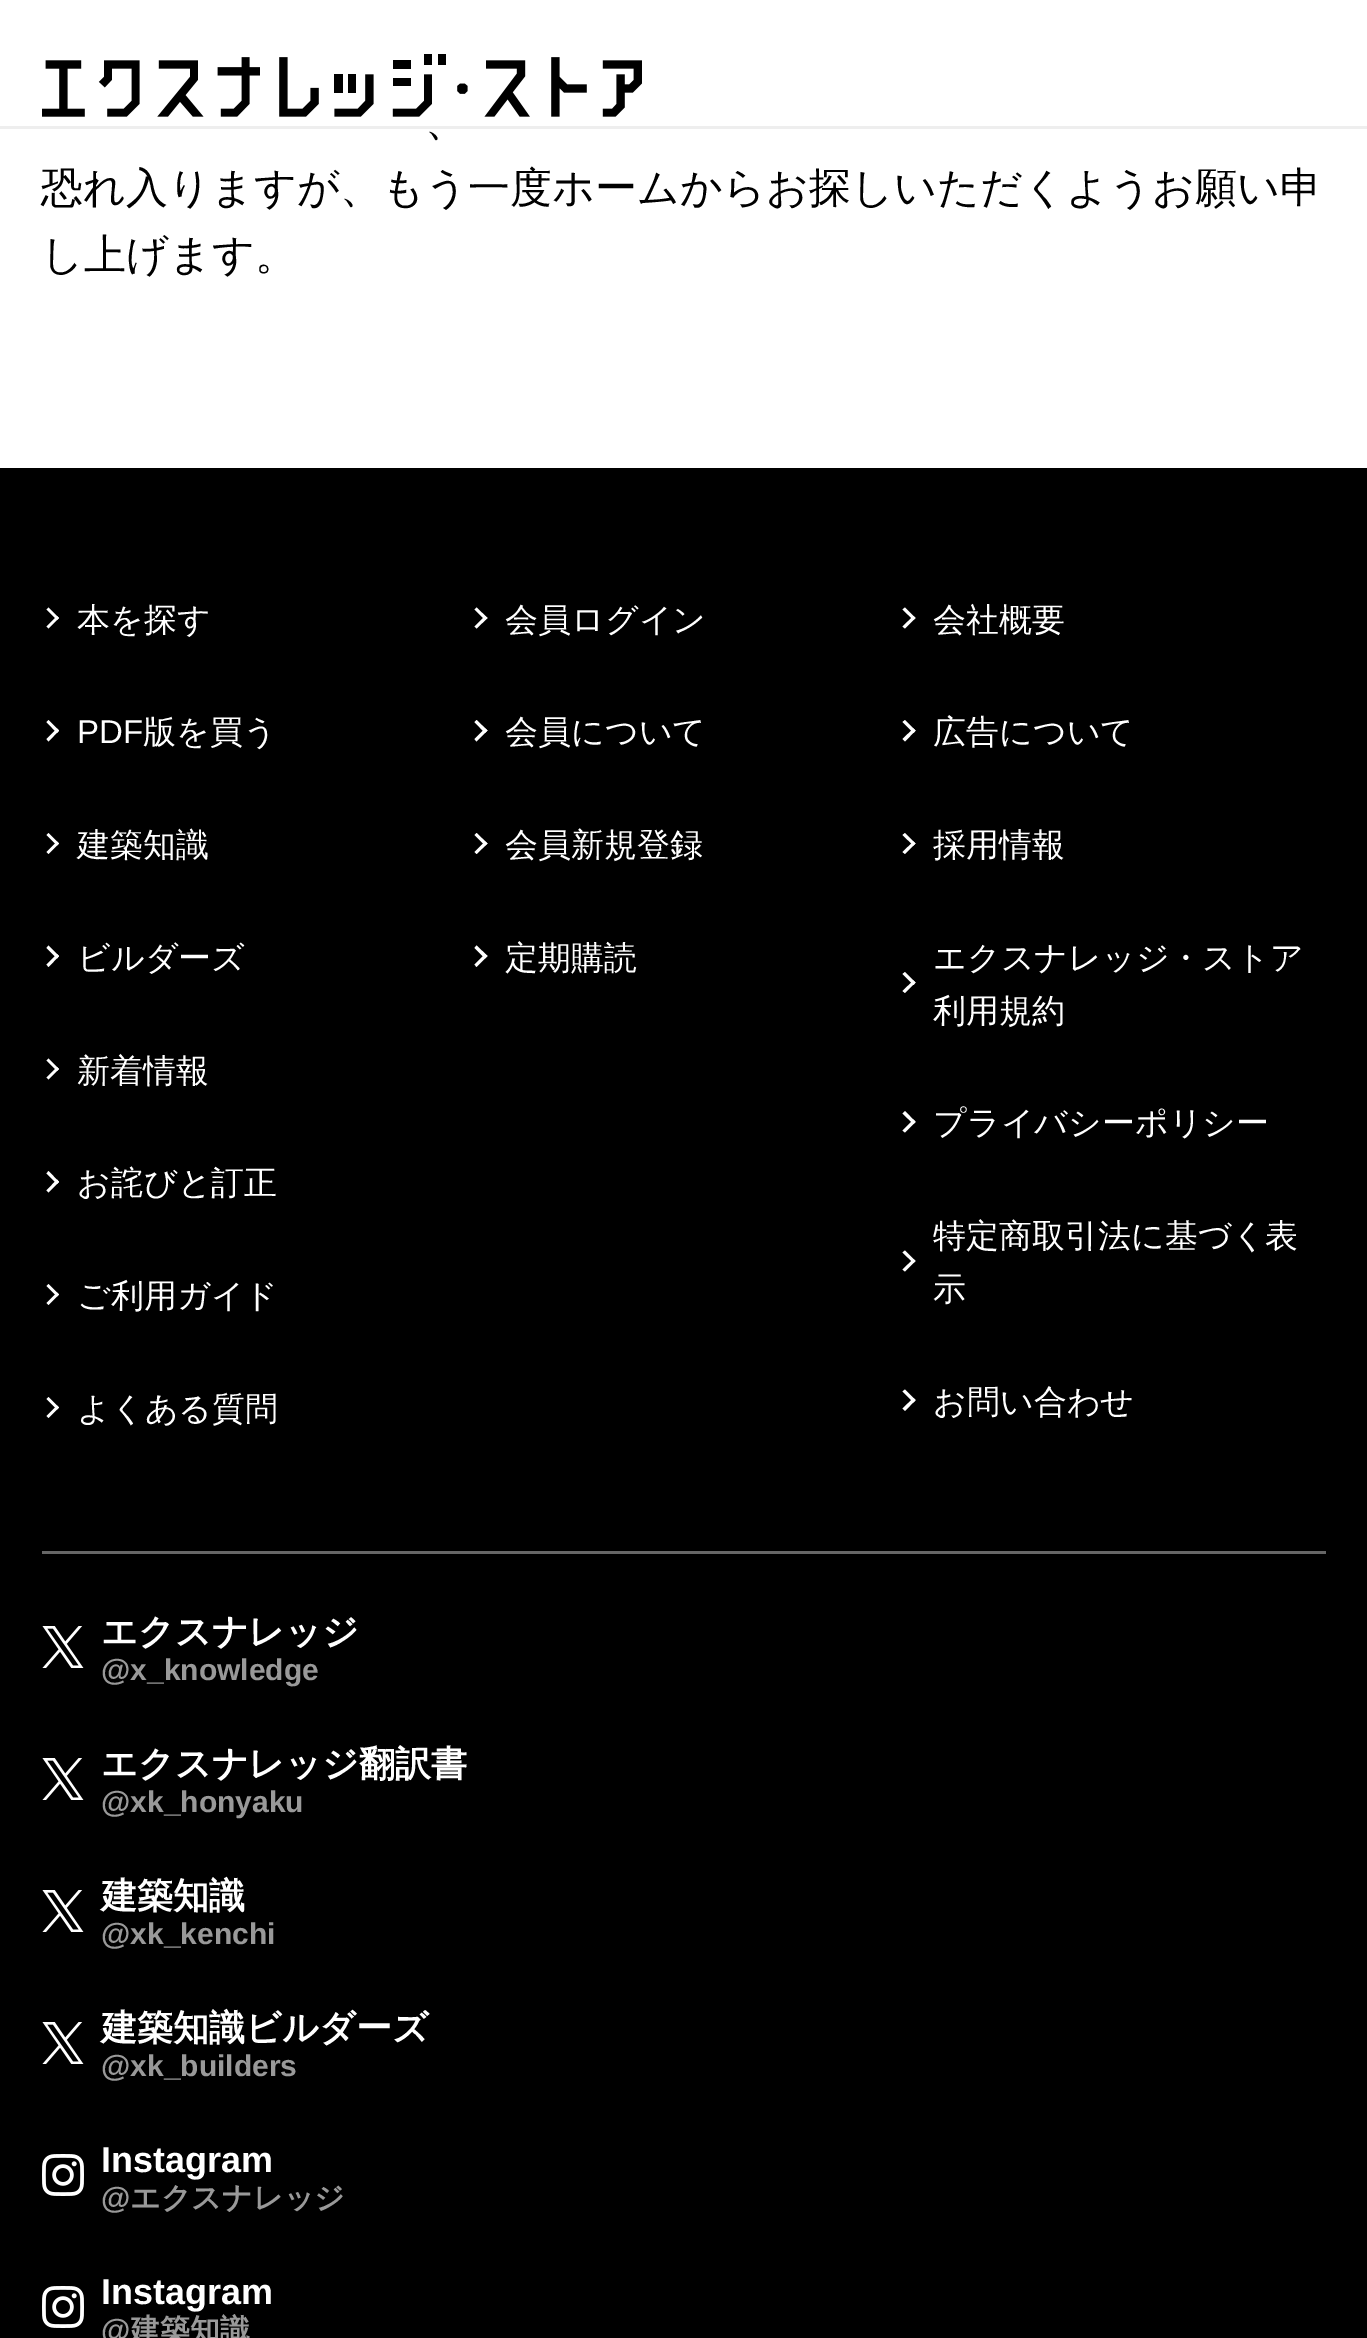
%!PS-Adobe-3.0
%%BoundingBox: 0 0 1367 2338
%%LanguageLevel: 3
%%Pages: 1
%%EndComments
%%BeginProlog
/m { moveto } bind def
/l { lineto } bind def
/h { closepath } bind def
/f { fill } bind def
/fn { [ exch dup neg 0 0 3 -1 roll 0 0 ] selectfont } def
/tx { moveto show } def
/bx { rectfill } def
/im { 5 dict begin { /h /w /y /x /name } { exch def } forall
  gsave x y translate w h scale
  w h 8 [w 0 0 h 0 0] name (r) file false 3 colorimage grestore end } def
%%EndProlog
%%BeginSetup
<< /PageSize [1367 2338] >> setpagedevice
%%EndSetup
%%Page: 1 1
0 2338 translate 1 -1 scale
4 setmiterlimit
1 setgray
0 0 1367 2338 bx
0.933 setgray
0 126 1367 3 bx
(image0.raw) 42 54 600 63 im
/WenQuanYiZenHei-Medium 42 fn
0 setgray
(、) 425 135 tx
(恐れ入りますが、もう一度ホームからお探しいただくようお願い申) 41 202 tx
(し上げます。) 41 269 tx
0 468 1367 1870 bx
1 setgray
48.5 607.5 m 59 618 l 57 620 l 46.5 609.5 l h f
57 616 m 59 618 l 48.5 628.5 l 46.5 626.5 l h f
/WenQuanYiZenHei-Medium 33 fn
(本を探す) 77 631 tx
48.5 720 m 59 730.5 l 57 733 l 46.5 722 l h f
57 728.5 m 59 730.5 l 48.5 741.5 l 46.5 739 l h f
/LiberationSans-Regular 33 fn
(PDF) 77 743 tx
/WenQuanYiZenHei-Medium 33 fn
(版を買う) 143 743 tx
48.5 833 m 59 843.5 l 57 845.5 l 46.5 835 l h f
57 841.5 m 59 843.5 l 48.5 854 l 46.5 852 l h f
(建築知識) 77 856 tx
48.5 945.5 m 59 956 l 57 958.5 l 46.5 948 l h f
57 954 m 59 956 l 48.5 967 l 46.5 964.5 l h f
(ビルダーズ) 77 969 tx
48.5 1058.5 m 59 1069 l 57 1071 l 46.5 1060.5 l h f
57 1067 m 59 1069 l 48.5 1079.5 l 46.5 1077.5 l h f
(新着情報) 77 1082 tx
48.5 1171 m 59 1182 l 57 1184 l 46.5 1173.5 l h f
57 1179.5 m 59 1182 l 48.5 1192.5 l 46.5 1190.5 l h f
(お詫びと訂正) 77 1194 tx
48.5 1284 m 59 1294.5 l 57 1296.5 l 46.5 1286 l h f
57 1292.5 m 59 1294.5 l 48.5 1305 l 46.5 1303 l h f
(ご利用ガイド) 77 1307 tx
48.5 1397 m 59 1407.5 l 57 1409.5 l 46.5 1399 l h f
57 1405.5 m 59 1407.5 l 48.5 1418 l 46.5 1416 l h f
(よくある質問) 77 1420 tx
476.5 607.5 m 487.5 618 l 485 620 l 474.5 609.5 l h f
485 616 m 487.5 618 l 476.5 628.5 l 474.5 626.5 l h f
(会員ログイン) 505 631 tx
476.5 720 m 487.5 730.5 l 485 733 l 474.5 722 l h f
485 728.5 m 487.5 730.5 l 476.5 741.5 l 474.5 739 l h f
(会員について) 505 743 tx
476.5 833 m 487.5 843.5 l 485 845.5 l 474.5 835 l h f
485 841.5 m 487.5 843.5 l 476.5 854 l 474.5 852 l h f
(会員新規登録) 505 856 tx
476.5 945.5 m 487.5 956 l 485 958.5 l 474.5 948 l h f
485 954 m 487.5 956 l 476.5 967 l 474.5 964.5 l h f
(定期購読) 505 969 tx
905 607.5 m 915.5 618 l 913.5 620 l 902.5 609.5 l h f
913.5 616 m 915.5 618 l 905 628.5 l 902.5 626.5 l h f
(会社概要) 933 631 tx
905 720 m 915.5 730.5 l 913.5 733 l 902.5 722 l h f
913.5 728.5 m 915.5 730.5 l 905 741.5 l 902.5 739 l h f
(広告について) 933 743 tx
905 833 m 915.5 843.5 l 913.5 845.5 l 902.5 835 l h f
913.5 841.5 m 915.5 843.5 l 905 854 l 902.5 852 l h f
(採用情報) 933 856 tx
(エクスナレッジ・ストア) 933 969 tx
905 972 m 915.5 982.5 l 913.5 985 l 902.5 974 l h f
913.5 980.5 m 915.5 982.5 l 905 993 l 902.5 991 l h f
(利用規約) 933 1022 tx
905 1111 m 915.5 1122 l 913.5 1124 l 902.5 1113.5 l h f
913.5 1119.5 m 915.5 1122 l 905 1132.5 l 902.5 1130.5 l h f
(プライバシーポリシー) 933 1134 tx
(特定商取引法に基づく表) 933 1247 tx
905 1250.5 m 915.5 1261 l 913.5 1263 l 902.5 1252.5 l h f
913.5 1259 m 915.5 1261 l 905 1271.5 l 902.5 1269.5 l h f
(示) 933 1300 tx
905 1389.5 m 915.5 1400 l 913.5 1402.5 l 902.5 1391.5 l h f
913.5 1398 m 915.5 1400 l 905 1411 l 902.5 1408.5 l h f
(お問い合わせ) 933 1413 tx
0.4 setgray
42 1551 1284 3 bx
(image1.raw) 42 1626 42 42 im
/WenQuanYiZenHei-Bold 36 fn
1 setgray
(エクスナレッジ) 101 1644 tx
/LiberationSans-Bold 30 fn
0.6 setgray
(@x_knowledge) 101 1680 tx
(image1.raw) 42 1758 42 42 im
/WenQuanYiZenHei-Bold 36 fn
1 setgray
(エクスナレッジ翻訳書) 101 1776 tx
/LiberationSans-Bold 30 fn
0.6 setgray
(@xk_honyaku) 101 1812 tx
(image1.raw) 42 1890 42 42 im
/WenQuanYiZenHei-Bold 36 fn
1 setgray
(建築知識) 101 1908 tx
/LiberationSans-Bold 30 fn
0.6 setgray
(@xk_kenchi) 101 1944 tx
(image1.raw) 42 2022 42 42 im
/WenQuanYiZenHei-Bold 36 fn
1 setgray
(建築知識ビルダーズ) 101 2040 tx
/LiberationSans-Bold 30 fn
0.6 setgray
(@xk_builders) 101 2076 tx
(image2.raw) 42 2154 42 42 im
/LiberationSans-Bold 36 fn
1 setgray
(Instagram) 101 2172 tx
/LiberationSans-Bold 30 fn
0.6 setgray
(@) 101 2208 tx
/WenQuanYiZenHei-Bold 30 fn
(エクスナレッジ) 130 2208 tx
(image2.raw) 42 2286 42 42 im
/LiberationSans-Bold 36 fn
1 setgray
(Instagram) 101 2304 tx
/LiberationSans-Bold 30 fn
0.6 setgray
(@) 101 2340 tx
/WenQuanYiZenHei-Bold 30 fn
(建築知識) 130 2340 tx
showpage
%%EOF
